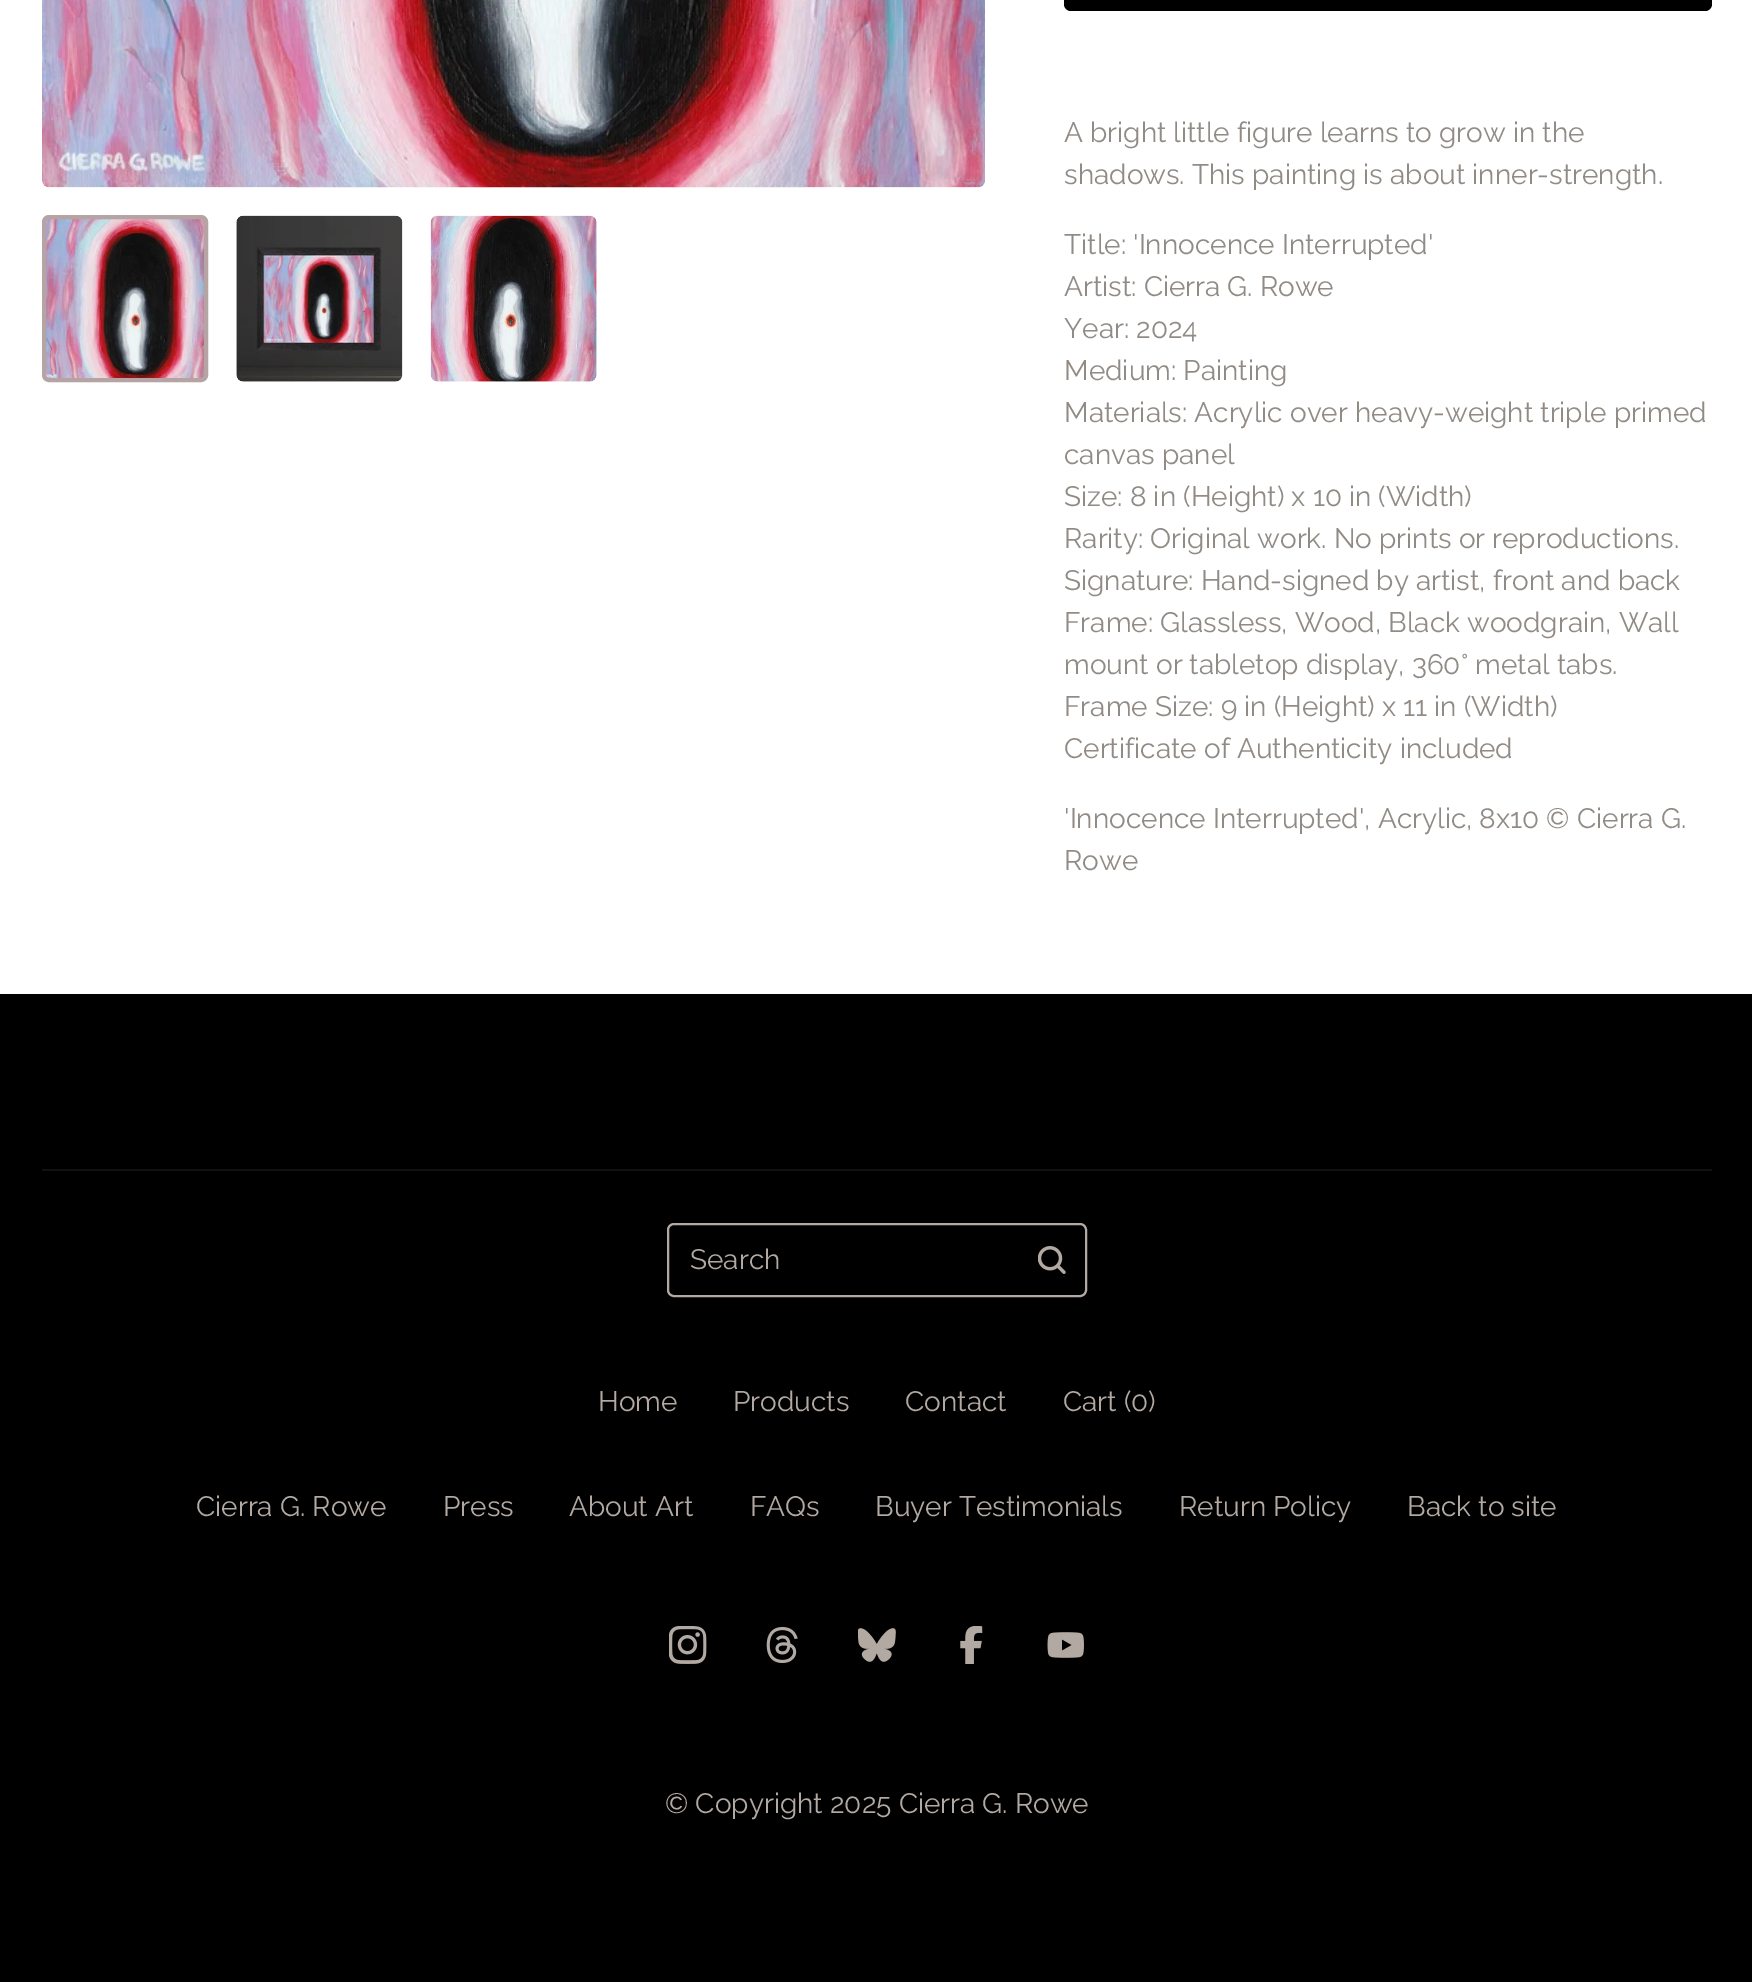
%!PS-Adobe-3.0
%%BoundingBox: 0 0 1752 1982
%%LanguageLevel: 3
%%Pages: 1
%%EndComments
%%BeginProlog
/f { fill } bind def
/S { stroke } bind def
/w { setlinewidth } bind def
/fn { [ exch dup neg 0 0 3 -1 roll 0 0 ] selectfont } def
/tx { moveto show } def
/bx { rectfill } def
/rr { 5 dict begin { /r /h /w /y /x } { exch def } forall
  x r add y moveto x w add y 2 copy h add r arct x w add y h add x 1 index r arct
  x y h add x y r arct x y 2 copy exch w add exch r arct closepath end } def
/im { 5 dict begin { /h /w /y /x /name } { exch def } forall
  gsave x y translate w h scale
  w h 8 [w 0 0 h 0 0] name (r) file false 3 colorimage grestore end } def
%%EndProlog
%%BeginSetup
<< /PageSize [1752 1982] >> setpagedevice
%%EndSetup
%%Page: 1 1
0 1982 translate 1 -1 scale
4 setmiterlimit
0 setgray
0 0 1752 1982 bx
1 setgray
0 0 1752 994 bx
(image0.raw) 42 0 943 188 im
(image1.raw) 42 215 166 167 im
0.714 0.643 0.643 setrgbcolor
4 w
44 217 162 163 5 rr S
(image2.raw) 236 215 167 167 im
(image3.raw) 430 215 167 167 im
0 setgray
1064 -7 648 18 7 rr f
/Raleway-Regular 28 fn
0.569 0.545 0.525 setrgbcolor
(A bright little figure learns to grow in the) 1064 142 tx
(shadows. This painting is about inner-strength.) 1064 184 tx
(Title: 'Innocence Interrupted') 1064 254 tx
(Artist: Cierra G. Rowe) 1064 296 tx
(Year: 2024) 1064 338 tx
(Medium: Painting) 1064 380 tx
(Materials: Acrylic over heavy-weight triple primed) 1064 422 tx
(canvas panel) 1064 464 tx
(Size: 8 in \(Height\) x 10 in \(Width\)) 1064 506 tx
(Rarity: Original work. No prints or reproductions.) 1064 548 tx
(Signature: Hand-signed by artist, front and back) 1064 590 tx
(Frame: Glassless, Wood, Black woodgrain, Wall) 1064 632 tx
(mount or tabletop display, 360° metal tabs.) 1064 674 tx
(Frame Size: 9 in \(Height\) x 11 in \(Width\)) 1064 716 tx
(Certificate of Authenticity included) 1064 758 tx
('Innocence Interrupted', Acrylic, 8x10 © Cierra G.) 1064 828 tx
(Rowe) 1064 870 tx
0.067 setgray
42 1169 1670 2 bx
0.698 0.663 0.639 setrgbcolor
2 w
668 1224 418 72 6 rr S
(Search) 690 1269 tx
(image4.raw) 1038 1246 28 28 im
(Home) 598 1411 tx
(Products) 733 1411 tx
(Contact) 905 1411 tx
(Cart \(0\)) 1063 1411 tx
(Cierra G. Rowe) 196 1516 tx
(Press) 443 1516 tx
(About Art) 569 1516 tx
(FAQs) 750 1516 tx
(Buyer Testimonials) 875 1516 tx
(Return Policy) 1179 1516 tx
(Back to site) 1407 1516 tx
(image5.raw) 669 1626 38 38 im
(image6.raw) 766 1626 32 38 im
(image7.raw) 858 1628 38 34 im
(image8.raw) 960 1626 23 38 im
(image9.raw) 1047 1632 37 26 im
(© Copyright 2025 Cierra G. Rowe) 665 1813 tx
showpage
%%EOF
